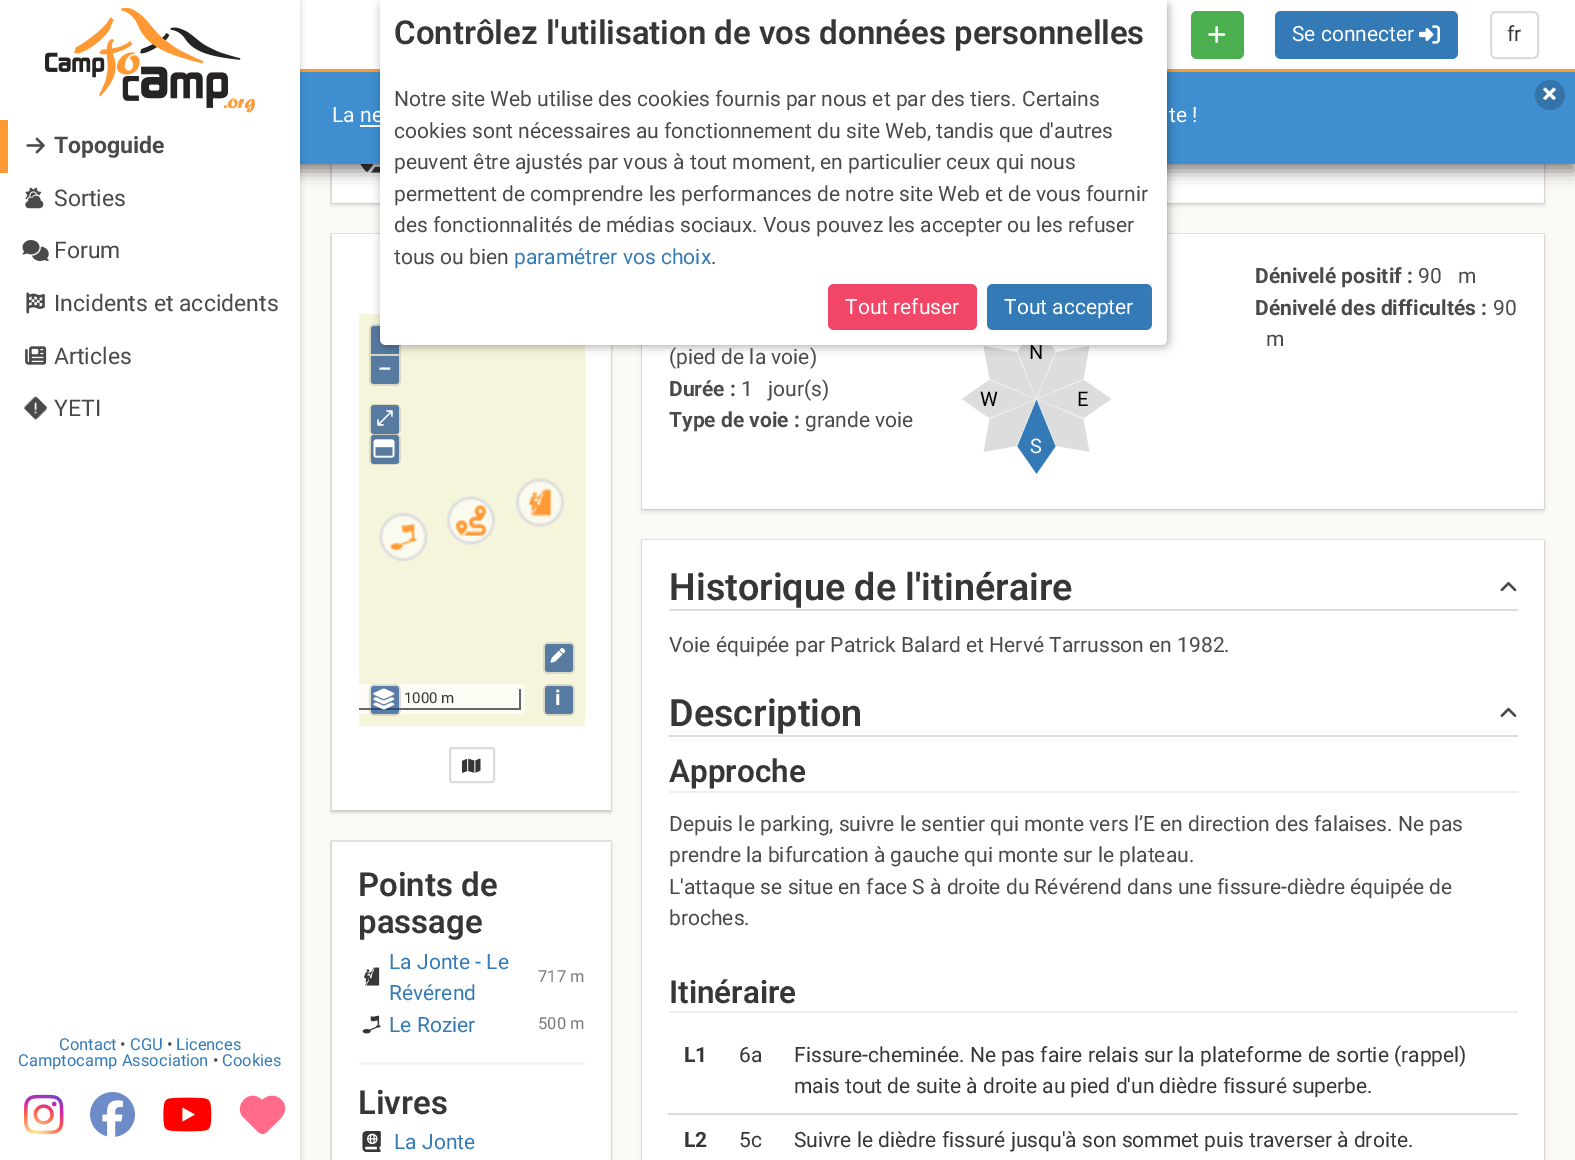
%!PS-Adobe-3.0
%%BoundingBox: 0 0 1575 1160
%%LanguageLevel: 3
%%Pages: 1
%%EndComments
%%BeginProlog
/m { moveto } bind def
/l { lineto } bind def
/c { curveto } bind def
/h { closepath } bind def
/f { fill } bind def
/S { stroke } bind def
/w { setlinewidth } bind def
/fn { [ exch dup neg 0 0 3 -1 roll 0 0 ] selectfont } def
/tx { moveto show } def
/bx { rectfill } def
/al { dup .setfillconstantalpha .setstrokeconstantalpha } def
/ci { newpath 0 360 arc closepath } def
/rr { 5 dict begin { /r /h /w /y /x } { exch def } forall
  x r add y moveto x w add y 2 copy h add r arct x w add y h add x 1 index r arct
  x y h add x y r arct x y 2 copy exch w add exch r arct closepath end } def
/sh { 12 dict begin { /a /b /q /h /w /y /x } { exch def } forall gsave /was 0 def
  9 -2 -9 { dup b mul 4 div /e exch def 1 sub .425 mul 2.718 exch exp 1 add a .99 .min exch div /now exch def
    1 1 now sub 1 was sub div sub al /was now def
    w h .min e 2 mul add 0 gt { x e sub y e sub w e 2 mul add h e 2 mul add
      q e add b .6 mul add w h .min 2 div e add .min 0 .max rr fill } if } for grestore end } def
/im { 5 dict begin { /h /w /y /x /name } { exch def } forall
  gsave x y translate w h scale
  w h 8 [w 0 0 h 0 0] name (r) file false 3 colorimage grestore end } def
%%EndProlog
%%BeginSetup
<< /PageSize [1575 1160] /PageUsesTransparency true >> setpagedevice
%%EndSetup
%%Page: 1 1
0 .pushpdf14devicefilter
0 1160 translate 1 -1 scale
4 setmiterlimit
0.984 0.98 0.965 setrgbcolor
0 0 1575 1160 bx
0.89 0.886 0.871 setrgbcolor
2 w
331 100 1213 103 rectstroke
0.039 setgray
332 104 1212 102 0 2 0.1 sh
1 setgray
332 164 1212 39 bx
(image14.raw) 360 164 20 9 im
0.039 setgray
0 77 1575 94 0 7.5 0.5 sh
1 0.6 0.2 setrgbcolor
300 69 1275 3 bx
1 setgray
300 0 1275 69 bx
0.243 0.557 0.816 setrgbcolor
300 72 1275 92 bx
1 setgray
360 125 20 2 bx
0.89 0.886 0.871 setrgbcolor
331 234 280 577 rectstroke
0.039 setgray
332 237 279 576 0 2 0.1 sh
1 setgray
332 234 279 576 bx
0.961 0.961 0.863 setrgbcolor
359 314 226 412 bx
0.847 0.847 0.773 setrgbcolor
369 324 32 62 6 rr f
0.337 0.478 0.627 setrgbcolor
374 326 m 396 326 l 397.5 326 399 327.5 399 329 c 399 354 l 371 354 l 371 329 l 371 327.5 372.5 326 374 326 c h f
371 356 m 399 356 l 399 381 l 399 382.5 397.5 384 396 384 c 374 384 l 372.5 384 371 382.5 371 381 c h f
0.89 0.886 0.871 setrgbcolor
642 234 902 275 rectstroke
0.039 setgray
642 237 902 275 0 2 0.1 sh
1 setgray
642 234 902 275 bx
(image23.raw) 962 345 149 129 im
0 setgray
381 2 788 345 6 4.5 0.3 sh
/Roboto-Regular 20 fn
(N) 1029 359 tx
1 setgray
380 0 m 1167 0 l 1167 339 l 1167 342.5 1164.5 345 1161 345 c 386 345 l 382.5 345 380 342.5 380 339 c h f
/Roboto-SemiBold 33 fn
0.212 setgray
(Contrôlez l'utilisation de vos données personnelles) 394 44 tx
/Roboto-Regular 21 fn
0.29 setgray
(Notre site Web utilise des cookies fournis par nous et par des tiers. Certains) 394 106 tx
(cookies sont nécessaires au fonctionnement du site Web, tandis que d'autres) 394 138 tx
(peuvent être ajustés par vous à tout moment, en particulier ceux qui nous) 394 169 tx
(permettent de comprendre les performances de notre site Web et de vous fournir) 394 201 tx
(des fonctionnalités de médias sociaux. Vous pouvez les accepter ou les refuser) 394 232 tx
(tous ou bien) 394 264 tx
0.2 0.478 0.718 setrgbcolor
(paramétrer vos choix) 514 264 tx
0.29 setgray
(.) 711 264 tx
0.945 0.275 0.408 setrgbcolor
828 284 149 46 6 rr f
1 setgray
(Tout refuser) 845 314 tx
0.2 0.478 0.718 setrgbcolor
987 284 165 46 6 rr f
1 setgray
(Tout accepter) 1004 314 tx
0.294 0.686 0.314 setrgbcolor
1191 11 53 48 6 rr f
(image0.raw) 1208 26 18 17 im
0.2 0.478 0.718 setrgbcolor
1275 11 183 48 6 rr f
1 setgray
(Se connecter) 1292 41 tx
(image1.raw) 1419 25 21 19 im
0.859 setgray
1491 12 47 46 5 rr S
0.212 setgray
(fr) 1507 41 tx
0.204 0.455 0.659 setrgbcolor
1550 95 15 ci f
1 setgray
1545.5 87.5 m 1556 98 l 1553.5 100 l 1543 89.5 l h f
1553.5 87.5 m 1556 89.5 l 1545.5 100 l 1543 98 l h f
(La ne) 332 122 tx
(te !) 1169 122 tx
0 setgray
0 2 300 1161 0 3 0.2 sh
1 setgray
0 0 300 1160 bx
(image2.raw) 45 8 210 105 im
1 0.6 0.2 setrgbcolor
0 120 8 53 bx
(image3.raw) 26 137 19 17 im
/Roboto-Bold 23 fn
0.29 setgray
(Topoguide) 54 153 tx
(image4.raw) 25 187 17 13 im
(image5.raw) 27 194 15 8 im
(image6.raw) 25 195 19 14 im
/Roboto-Regular 23 fn
(Sorties) 54 206 tx
(image7.raw) 22 240 27 21 im
(Forum) 54 258 tx
(image8.raw) 26 292 19 22 im
(Incidents et accidents) 54 311 tx
(image9.raw) 25 346 22 19 im
(Articles) 54 364 tx
(image10.raw) 23 396 25 24 im
(YETI) 54 416 tx
/Roboto-Regular 16.5 fn
0.2 0.478 0.718 setrgbcolor
(Contact) 59 1050 tx
0.29 setgray
(•) 120 1050 tx
0.2 0.478 0.718 setrgbcolor
(CGU) 130 1050 tx
0.29 setgray
(•) 167 1050 tx
0.2 0.478 0.718 setrgbcolor
(Licences) 176 1050 tx
(Camptocamp Association) 18 1066 tx
0.29 setgray
(•) 213 1066 tx
0.2 0.478 0.718 setrgbcolor
(Cookies) 222 1066 tx
(image11.raw) 24 1094 40 41 im
(image12.raw) 90 1092 45 45 im
(image13.raw) 163 1097 49 35 im
1 0.42 0.537 setrgbcolor
244 1118 m 257 1131 l 262 1135 263 1135 268 1131 c 273 1126 l 276 1123 281 1119 283 1115 c 291 1102 274 1089 262 1100 c 249 1087 232 1107 244 1118 c h f
/Roboto-Bold 21 fn
1 setgray
(–) 378 376 tx
0.847 0.847 0.773 setrgbcolor
369 404 32 31 6 rr f
0.337 0.478 0.627 setrgbcolor
371 405 28 29 3 rr f
/FreeSerif-Bold 21 fn
1 setgray
(⤢) 376 425 tx
0.25 al
0.502 setgray
369 434 32 31 6 rr f
1 al
0.337 0.478 0.627 setrgbcolor
371 435 28 29 3 rr f
(image15.raw) 373 439 22 19 im
0.847 0.847 0.773 setrgbcolor
543 642 32 32 6 rr f
0.337 0.478 0.627 setrgbcolor
545 644 28 28 3 rr f
(image16.raw) 550 648 16 15 im
0.992 0.992 0.965 setrgbcolor
359 684 m 519 684 l 522.5 684 525 686.5 525 690 c 525 708 l 525 711.5 522.5 714 519 714 c 359 714 l h f
0.4 setgray
519 689 2 21 bx
359 708 162 2 bx
0.25 al
0.502 setgray
369 684 32 32 6 rr f
0.6 al
0 0.235 0.533 setrgbcolor
371 686 28 28 3 rr f
1 al
(image17.raw) 373 688 22 22 im
/Roboto-Regular 15 fn
0.212 setgray
(1000 m) 404 703 tx
0.847 0.847 0.773 setrgbcolor
543 684 32 32 6 rr f
0.337 0.478 0.627 setrgbcolor
545 686 28 28 3 rr f
/Roboto-Bold 21 fn
1 setgray
(i) 555 705 tx
(image18.raw) 379 478 186 84 im
0.859 setgray
450 748 44 34 2 rr S
(image19.raw) 462 758 19 15 im
0.89 0.886 0.871 setrgbcolor
331 841 280 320 rectstroke
0.039 setgray
332 845 279 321 0 2 0.1 sh
1 setgray
332 842 279 318 bx
/Roboto-SemiBold 33 fn
0.212 setgray
(Points de) 358 896 tx
(passage) 358 933 tx
(image20.raw) 364 967 16 19 im
/Roboto-Regular 21 fn
0.2 0.478 0.718 setrgbcolor
(La Jonte - Le) 389 969 tx
(Révérend) 389 1000 tx
/Roboto-Regular 16.5 fn
0.478 setgray
(717 m) 538 982 tx
(image21.raw) 362 1015 19 19 im
/Roboto-Regular 21 fn
0.2 0.478 0.718 setrgbcolor
(Le Rozier) 389 1032 tx
/Roboto-Regular 16.5 fn
0.478 setgray
(500 m) 538 1029 tx
0.961 setgray
359 1062 226 3 bx
/Roboto-SemiBold 33 fn
0.212 setgray
(Livres) 358 1114 tx
(image22.raw) 362 1131 19 21 im
/Roboto-Regular 21 fn
0.2 0.478 0.718 setrgbcolor
(La Jonte) 394 1149 tx
/Roboto-Bold 21 fn
0.29 setgray
(Dénivelé positif :) 1255 283 tx
/Roboto-Regular 21 fn
(90) 1418 283 tx
(m) 1458 283 tx
/Roboto-Bold 21 fn
(Dénivelé des difficultés :) 1255 315 tx
/Roboto-Regular 21 fn
(90) 1493 315 tx
(m) 1266 346 tx
(\(pied de la voie\)) 669 364 tx
/Roboto-Bold 21 fn
(Durée :) 669 396 tx
/Roboto-Regular 21 fn
(1) 741 396 tx
(jour\(s\)) 768 396 tx
/Roboto-Bold 21 fn
(Type de voie :) 669 427 tx
/Roboto-Regular 21 fn
(grande voie) 805 427 tx
/Roboto-Regular 20 fn
0 setgray
(W) 980 406 tx
(E) 1077 406 tx
1 setgray
(S) 1030 453 tx
0.89 0.886 0.871 setrgbcolor
642 540 902 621 rectstroke
0.039 setgray
642 543 902 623 0 2 0.1 sh
1 setgray
642 540 902 620 bx
0.867 setgray
669 609 849 2 bx
/Roboto-SemiBold 37.75 fn
0.212 setgray
(Historique de l'itinéraire) 669 600 tx
(image24.raw) 1500 582 17 10 im
/Roboto-Regular 21 fn
0.29 setgray
(Voie équipée par Patrick Balard et Hervé Tarrusson en 1982.) 669 652 tx
0.867 setgray
669 735 849 2 bx
/Roboto-SemiBold 37.75 fn
0.212 setgray
(Description) 669 726 tx
(image25.raw) 1500 707 17 10 im
0.933 setgray
669 791 849 2 bx
/Roboto-SemiBold 31.5 fn
0.212 setgray
(Approche) 669 782 tx
/Roboto-Regular 21 fn
0.29 setgray
(Depuis le parking, suivre le sentier qui monte vers l’E en direction des falaises. Ne pas) 669 831 tx
(prendre la bifurcation à gauche qui monte sur le plateau.) 669 862 tx
(L'attaque se situe en face S à droite du Révérend dans une fissure-dièdre équipée de) 669 894 tx
(broches.) 669 925 tx
0.933 setgray
669 1011 849 2 bx
/Roboto-SemiBold 31.5 fn
0.212 setgray
(Itinéraire) 669 1003 tx
/Roboto-Bold 21 fn
(L1) 684 1062 tx
/Roboto-Regular 21 fn
(6a) 739 1062 tx
0.859 setgray
668 1113 850 2 bx
0.212 setgray
(Fissure-cheminée. Ne pas faire relais sur la plateforme de sortie \(rappel\)) 794 1062 tx
(mais tout de suite à droite au pied d'un dièdre fissuré superbe.) 794 1093 tx
/Roboto-Bold 21 fn
(L2) 684 1147 tx
/Roboto-Regular 21 fn
(5c) 739 1147 tx
(Suivre le dièdre fissuré jusqu'à son sommet puis traverser à droite.) 794 1147 tx
.poppdf14devicefilter showpage
%%EOF
